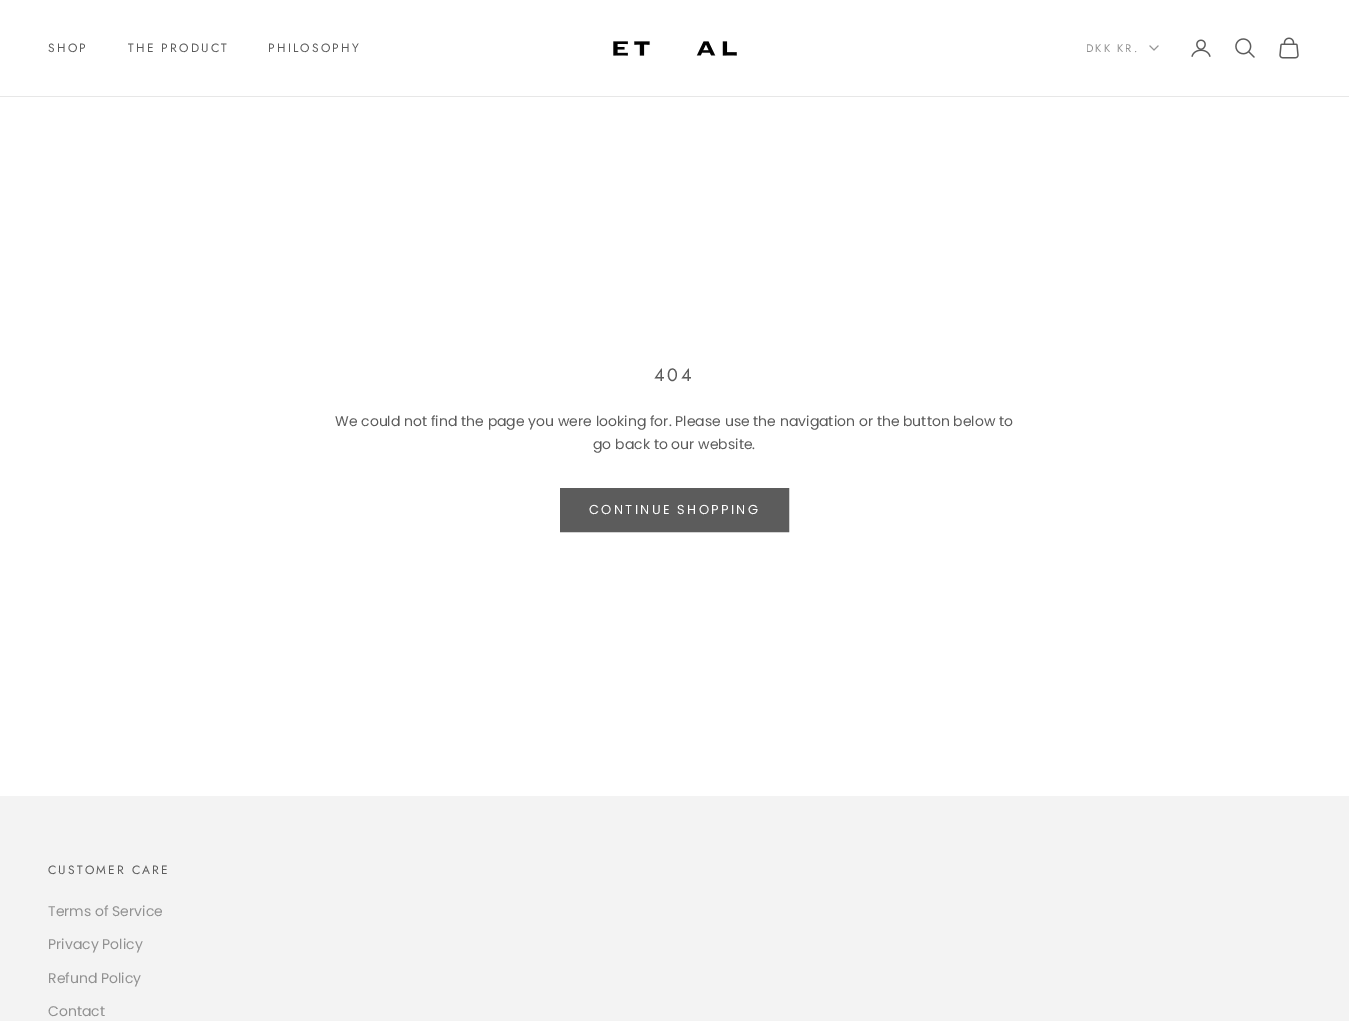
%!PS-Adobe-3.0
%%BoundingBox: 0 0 1349 1021
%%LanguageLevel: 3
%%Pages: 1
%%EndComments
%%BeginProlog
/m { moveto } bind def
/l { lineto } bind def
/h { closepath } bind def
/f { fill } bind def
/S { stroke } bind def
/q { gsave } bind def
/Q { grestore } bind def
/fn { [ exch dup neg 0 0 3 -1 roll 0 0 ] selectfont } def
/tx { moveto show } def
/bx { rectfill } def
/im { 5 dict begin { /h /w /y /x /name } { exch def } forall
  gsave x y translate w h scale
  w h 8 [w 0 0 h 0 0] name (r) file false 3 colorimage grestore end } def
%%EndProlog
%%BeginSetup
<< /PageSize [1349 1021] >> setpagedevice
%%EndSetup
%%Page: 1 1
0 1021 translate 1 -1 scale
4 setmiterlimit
1 setgray
0 0 1349 1021 bx
0.906 setgray
0 96 1349 1 bx
/Jost-Regular 12 fn
0.361 setgray
48 52 m 2.2 0 (SHOP) ashow
128 52 m 2.2 0 (THE PRODUCT) ashow
268 52 m 2.2 0 (PHILOSOPHY) ashow
(image0.raw) 613 41 124 15 im
/Jost-Regular 11 fn
0.569 setgray
1086 52 m 2 0 (DKK KR.) ashow
0.584 setgray
2 setlinecap
1150 46 m 1154 50 l 1158 46 l S
(image1.raw) 1191 39 20 18 im
(image2.raw) 1235 38 20 20 im
(image3.raw) 1279 37 20 22 im
/Jost-Regular 18 fn
0.361 setgray
654 381 m 3 0 (404) ashow
/Poppins-Regular 14 fn
(We could not find the page you were looking for. Please use the navigation or the button below to) 335 426 tx
(go back to our website.) 593 449 tx
560.5 488.5 m 788.5 488.5 l 788.5 531.5 l 560.5 531.5 l h q f Q
0 setlinecap
S
/Poppins-Regular 13 fn
1 setgray
589 514 m 2.3 0 (CONTINUE SHOPPING) ashow
0.953 setgray
0 796 1349 225 bx
/Jost-Regular 12 fn
0.361 setgray
48 874 m 2.2 0 (CUSTOMER CARE) ashow
/Poppins-Regular 14 fn
0.569 setgray
(Terms of Service) 48 916 tx
(Privacy Policy) 48 949 tx
(Refund Policy) 48 983 tx
(Contact) 48 1016 tx
showpage
%%EOF
